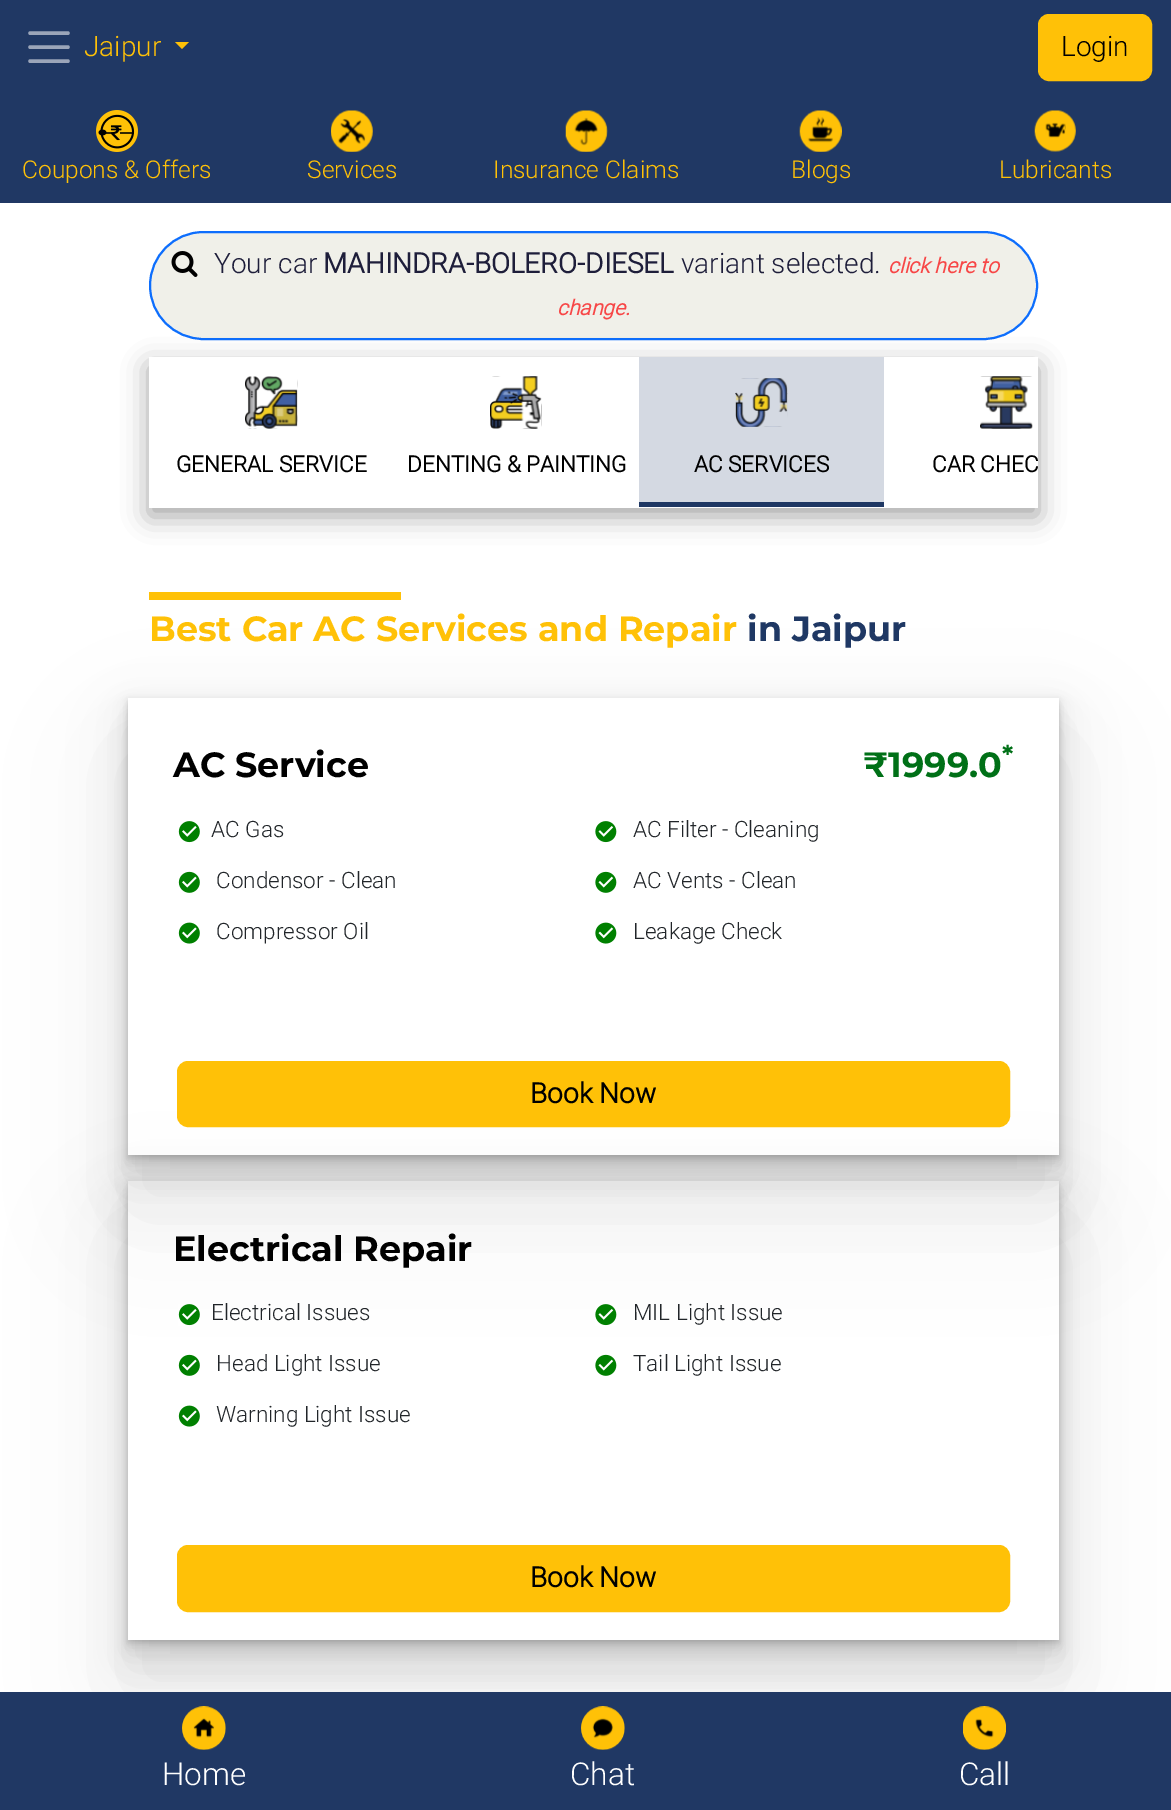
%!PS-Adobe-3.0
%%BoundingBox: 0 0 1171 1810
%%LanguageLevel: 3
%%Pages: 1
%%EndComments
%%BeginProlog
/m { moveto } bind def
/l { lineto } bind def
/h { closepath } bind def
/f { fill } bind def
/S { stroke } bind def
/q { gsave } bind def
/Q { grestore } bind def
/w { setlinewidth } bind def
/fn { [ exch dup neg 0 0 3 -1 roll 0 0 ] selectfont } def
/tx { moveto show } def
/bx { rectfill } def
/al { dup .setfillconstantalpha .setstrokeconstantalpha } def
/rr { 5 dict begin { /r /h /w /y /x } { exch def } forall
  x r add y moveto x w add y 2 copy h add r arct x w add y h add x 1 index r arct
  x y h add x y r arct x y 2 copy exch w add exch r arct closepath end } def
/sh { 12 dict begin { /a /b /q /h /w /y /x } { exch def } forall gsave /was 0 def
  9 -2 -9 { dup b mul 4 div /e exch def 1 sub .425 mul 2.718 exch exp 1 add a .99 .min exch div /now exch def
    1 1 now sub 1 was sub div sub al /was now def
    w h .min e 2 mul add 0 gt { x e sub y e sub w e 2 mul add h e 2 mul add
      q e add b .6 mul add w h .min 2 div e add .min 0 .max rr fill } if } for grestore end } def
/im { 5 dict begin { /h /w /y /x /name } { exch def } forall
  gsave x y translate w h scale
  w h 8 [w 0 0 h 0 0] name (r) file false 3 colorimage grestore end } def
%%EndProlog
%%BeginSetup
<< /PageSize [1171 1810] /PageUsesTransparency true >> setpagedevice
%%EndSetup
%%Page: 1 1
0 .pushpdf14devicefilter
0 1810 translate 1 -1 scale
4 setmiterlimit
1 setgray
0 0 1171 1810 bx
0.125 0.22 0.392 setrgbcolor
0 0 1171 203 bx
0.608 0.647 0.725 setrgbcolor
3.5 w
1 setlinecap
30 33 m 68 33 l 30 47 m 68 47 l 30 61 m 68 61 l S
/Roboto-Light 28 fn
1 0.757 0.027 setrgbcolor
(Jaipur) 84 56 tx
175 42 m 189 42 l 182 49 l h f
1039 15 112 65 10 rr q f Q
2 w
0 setlinecap
S
0 setgray
(Login) 1061 56 tx
(image0.raw) 96 110 42 42 im
/Roboto-Light 24.5 fn
1 0.757 0.027 setrgbcolor
(Coupons & Offers) 22 178 tx
(image1.raw) 331 110 42 42 im
(Services) 307 178 tx
(image2.raw) 565 110 43 42 im
(Insurance Claims) 493 178 tx
(image3.raw) 799 110 43 42 im
(Blogs) 791 178 tx
(image4.raw) 1034 110 42 42 im
(Lubricants) 999 178 tx
0.941 0.941 0.914 setrgbcolor
150 232 887 107 53.5 rr q f Q
0.051 0.431 0.992 setrgbcolor
S
(image5.raw) 171 251 27 26 im
/Roboto-Light 28 fn
0.118 0.118 0.227 setrgbcolor
(Your car) 214 273 tx
/Roboto-Bold 28 fn
(MAHINDRA-BOLERO-DIESEL) 323 273 tx
/Roboto-Light 28 fn
(variant selected.) 681 273 tx
/Roboto-BoldItalic 21 fn
0.969 0.278 0.278 setrgbcolor
(click here to) 888 273 tx
(change.) 557 315 tx
q
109 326 m 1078 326 l 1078 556 l 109 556 l h 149 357 m 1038 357 l 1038 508 l 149 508 l h eoclip newpath
0 setgray
149 366 889 150 0 13 0.35 sh
Q
(image6.raw) 245 376 53 53 im
/Roboto-Bold 22.5 fn
0 setgray
(GENERAL SERVICE) 176 472 tx
(image7.raw) 490 376 52 53 im
(DENTING & PAINTING) 407 472 tx
0.831 0.851 0.886 setrgbcolor
639 357 245 145 bx
(image8.raw) 735 378 53 49 im
0 setgray
(AC SERVICES) 694 472 tx
0.122 0.22 0.392 setrgbcolor
639 502 245 5 bx
(image9.raw) 980 376 53 53 im
0 setgray
(CAR CHEC) 932 472 tx
q
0 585 m 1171 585 l 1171 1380 l 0 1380 l h 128 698 m 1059 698 l 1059 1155 l 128 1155 l h eoclip newpath
128 754 931 457 0 56 0.07 sh
Q
1 0.757 0.027 setrgbcolor
149 592 252 8 bx
q
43 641 m 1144 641 l 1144 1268 l 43 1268 l h 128 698 m 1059 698 l 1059 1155 l 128 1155 l h eoclip newpath
0 setgray
128 726 931 457 0 28 0.07 sh
Q
/Montserrat-Bold 35 fn
(Best Car AC Services and Repair) 149 641 tx
0.122 0.22 0.392 setrgbcolor
(in Jaipur) 747 641 tx
q
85 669 m 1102 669 l 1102 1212 l 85 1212 l h 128 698 m 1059 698 l 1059 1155 l 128 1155 l h eoclip newpath
0 setgray
128 712 931 457 0 14 0.07 sh
Q
q
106 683 m 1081 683 l 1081 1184 l 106 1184 l h 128 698 m 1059 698 l 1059 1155 l 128 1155 l h eoclip newpath
0 setgray
128 705 931 457 0 7 0.07 sh
Q
q
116 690 m 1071 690 l 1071 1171 l 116 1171 l h 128 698 m 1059 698 l 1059 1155 l 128 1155 l h eoclip newpath
0 setgray
128 702 931 457 0 3.5 0.07 sh
Q
q
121 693 m 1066 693 l 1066 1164 l 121 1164 l h 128 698 m 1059 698 l 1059 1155 l 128 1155 l h eoclip newpath
0 setgray
128 700 931 457 0 2 0.07 sh
Q
0 setgray
(AC Service) 173 777 tx
/Montserrat-Bold 26 fn
0 0.439 0.09 setrgbcolor
(*) 1002 764 tx
/Montserrat-Bold 35 fn
(₹1999.0) 863 777 tx
(image10.raw) 178 821 22 22 im
/Roboto-Light 22.5 fn
0.129 0.145 0.161 setrgbcolor
(AC Gas) 211 837 tx
(image11.raw) 595 821 22 22 im
(AC Filter - Cleaning) 633 837 tx
(image12.raw) 178 871 22 22 im
(Condensor - Clean) 216 888 tx
(image13.raw) 595 871 22 22 im
(AC Vents - Clean) 633 888 tx
(image14.raw) 178 922 22 22 im
(Compressor Oil) 216 939 tx
(image15.raw) 595 922 22 22 im
(Leakage Check) 633 939 tx
q
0 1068 m 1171 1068 l 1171 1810 l 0 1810 l h 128 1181 m 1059 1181 l 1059 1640 l 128 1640 l h eoclip newpath
0 setgray
128 1237 931 459 0 56 0.07 sh
Q
q
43 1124 m 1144 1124 l 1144 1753 l 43 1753 l h 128 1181 m 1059 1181 l 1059 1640 l 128 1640 l h eoclip newpath
0 setgray
128 1209 931 459 0 28 0.07 sh
Q
1 0.757 0.027 setrgbcolor
178 1062 831 64 10 rr q f Q
S
/Roboto-Bold 28 fn
0 setgray
(Book Now) 530 1103 tx
q
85 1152 m 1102 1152 l 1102 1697 l 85 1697 l h 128 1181 m 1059 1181 l 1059 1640 l 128 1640 l h eoclip newpath
128 1195 931 459 0 14 0.07 sh
Q
q
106 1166 m 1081 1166 l 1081 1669 l 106 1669 l h 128 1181 m 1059 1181 l 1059 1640 l 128 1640 l h eoclip newpath
128 1188 931 459 0 7 0.07 sh
Q
q
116 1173 m 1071 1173 l 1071 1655 l 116 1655 l h 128 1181 m 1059 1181 l 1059 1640 l 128 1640 l h eoclip newpath
128 1185 931 458 0 3.5 0.07 sh
Q
q
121 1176 m 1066 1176 l 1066 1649 l 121 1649 l h 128 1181 m 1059 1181 l 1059 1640 l 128 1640 l h eoclip newpath
128 1183 931 459 0 2 0.07 sh
Q
/Montserrat-Bold 35 fn
(Electrical Repair) 173 1261 tx
(image16.raw) 178 1304 22 22 im
/Roboto-Light 22.5 fn
0.129 0.145 0.161 setrgbcolor
(Electrical Issues) 211 1320 tx
(image17.raw) 595 1304 22 22 im
(MIL Light Issue) 633 1320 tx
(image18.raw) 178 1354 22 22 im
(Head Light Issue) 216 1371 tx
(image19.raw) 595 1354 22 22 im
(Tail Light Issue) 633 1371 tx
(image14.raw) 178 1405 22 22 im
(Warning Light Issue) 216 1422 tx
1 0.757 0.027 setrgbcolor
178 1546 831 65 10 rr q f Q
S
/Roboto-Bold 28 fn
0 setgray
(Book Now) 530 1587 tx
0.125 0.22 0.392 setrgbcolor
0 1692 1171 118 bx
(image20.raw) 182 1706 44 44 im
/Roboto-Light 31.5 fn
1 setgray
(Home) 162 1785 tx
(image21.raw) 581 1706 44 44 im
(Chat) 570 1785 tx
(image22.raw) 963 1706 43 44 im
(Call) 959 1785 tx
.poppdf14devicefilter showpage
%%EOF
